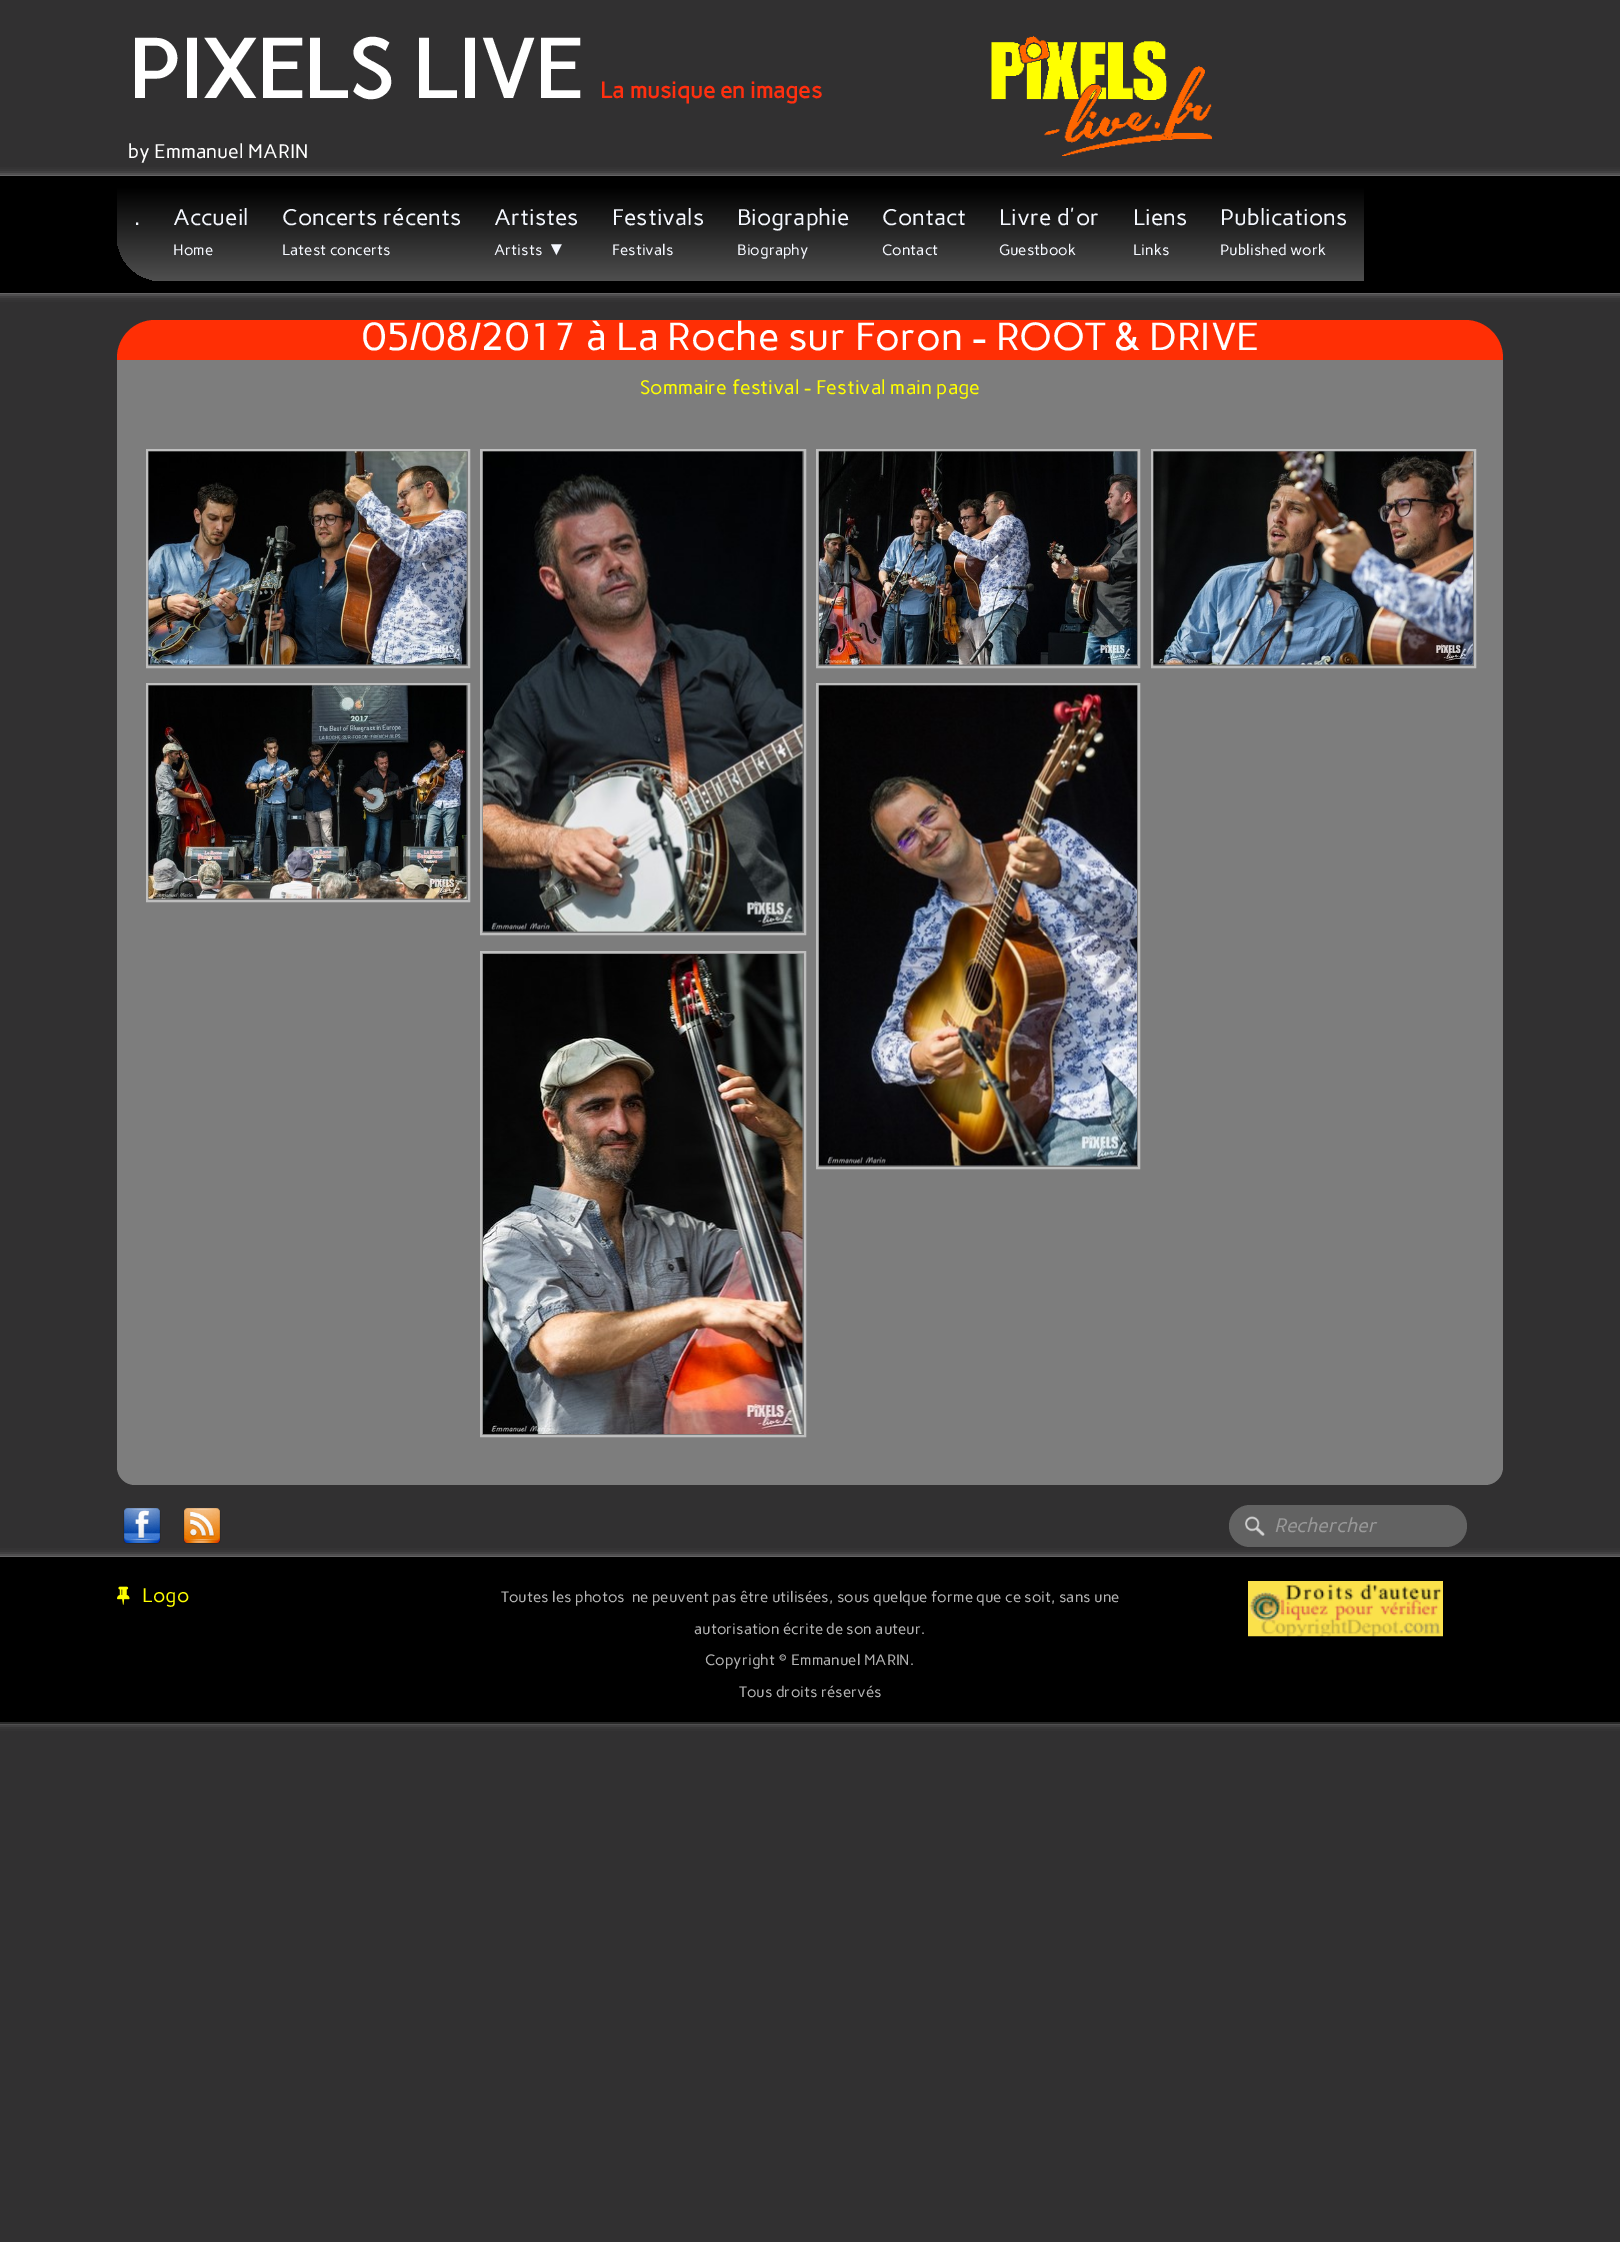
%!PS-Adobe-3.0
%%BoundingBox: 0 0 1620 2242
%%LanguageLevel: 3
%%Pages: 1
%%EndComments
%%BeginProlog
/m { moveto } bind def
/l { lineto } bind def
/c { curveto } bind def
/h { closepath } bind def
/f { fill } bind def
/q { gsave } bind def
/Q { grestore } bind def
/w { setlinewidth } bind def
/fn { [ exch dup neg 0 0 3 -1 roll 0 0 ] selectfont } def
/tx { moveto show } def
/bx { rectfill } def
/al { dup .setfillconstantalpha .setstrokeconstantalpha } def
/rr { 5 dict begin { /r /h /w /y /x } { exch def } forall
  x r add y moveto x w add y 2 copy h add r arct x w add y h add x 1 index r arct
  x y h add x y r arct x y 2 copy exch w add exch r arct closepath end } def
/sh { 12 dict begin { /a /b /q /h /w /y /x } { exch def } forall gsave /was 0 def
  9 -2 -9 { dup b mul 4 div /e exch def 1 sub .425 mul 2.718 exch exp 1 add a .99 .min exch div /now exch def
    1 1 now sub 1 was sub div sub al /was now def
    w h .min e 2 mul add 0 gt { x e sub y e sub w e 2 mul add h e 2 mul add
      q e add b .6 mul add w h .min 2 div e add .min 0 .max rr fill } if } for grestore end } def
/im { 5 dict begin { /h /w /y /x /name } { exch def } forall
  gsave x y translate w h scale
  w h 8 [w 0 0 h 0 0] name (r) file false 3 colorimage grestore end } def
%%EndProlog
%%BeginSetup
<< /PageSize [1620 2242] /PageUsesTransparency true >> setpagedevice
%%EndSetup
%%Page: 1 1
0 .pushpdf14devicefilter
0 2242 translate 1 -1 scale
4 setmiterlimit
0.192 0.188 0.192 setrgbcolor
0 0 1620 2242 bx
(image0.raw) 991 36 221 120 im
/Carme-Bold 82.5 fn
1 setgray
(PIXELS LIVE) 128 98 tx
/Carme-Bold 22.5 fn
1 0.184 0.059 setrgbcolor
(La musique en images) 600 98 tx
/Carme-Regular 19.5 fn
1 setgray
(by Emmanuel MARIN) 128 158 tx
-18 176 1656 117 6 4 0.5 sh
0 setgray
0 176 1620 117 bx
q 117 188 m 1364 188 l 1364 281 l 162 281 l 137 281 117 261 117 236 c h clip newpath
<< /ShadingType 2 /ColorSpace /DeviceRGB /Coords [740 187 740 281] /Extend [true true] /Function << /FunctionType 2 /Domain [0 1] /C0 [0 0 0] /C1 [0.31 0.31 0.31] /N 1 >> >> shfill Q
/Carme-Regular 22.5 fn
0.961 0.973 1 setrgbcolor
(.) 134 225 tx
(Accueil) 173 225 tx
/Carme-Regular 15 fn
(Home) 173 255 tx
/Carme-Regular 22.5 fn
(Concerts récents) 282 225 tx
/Carme-Regular 15 fn
(Latest concerts) 282 255 tx
/Carme-Regular 22.5 fn
(Artistes) 494 225 tx
/Carme-Regular 15 fn
(Artists) 494 255 tx
/LiberationSans-Regular 19 fn
(▼) 547 255 tx
/Carme-Regular 22.5 fn
(Festivals) 612 225 tx
/Carme-Regular 15 fn
(Festivals) 612 255 tx
/Carme-Regular 22.5 fn
(Biographie) 737 225 tx
/Carme-Regular 15 fn
(Biography) 737 255 tx
/Carme-Regular 22.5 fn
(Contact) 882 225 tx
/Carme-Regular 15 fn
(Contact) 882 255 tx
/Carme-Regular 22.5 fn
(Livre d'or) 999 225 tx
/Carme-Regular 15 fn
(Guestbook) 999 255 tx
/Carme-Regular 22.5 fn
(Liens) 1133 225 tx
/Carme-Regular 15 fn
(Links) 1133 255 tx
/Carme-Regular 22.5 fn
(Publications) 1220 225 tx
/Carme-Regular 15 fn
(Published work) 1220 255 tx
1 0.184 0.02 setrgbcolor
155 320 m 1465 320 l 1486 320 1503 337 1503 358 c 1503 360 l 117 360 l 117 358 l 117 337 134 320 155 320 c h f
/Carme-Regular 39 fn
1 setgray
(05/08/2017 à La Roche sur Foron - ROOT & DRIVE) 362 350 tx
0.49 setgray
117 360 m 1503 360 l 1503 1467 l 1503 1477 1495 1485 1485 1485 c 135 1485 l 125 1485 117 1477 117 1467 c h f
/Carme-Regular 19.5 fn
1 1 0 setrgbcolor
(Sommaire festival - Festival main page) 640 394 tx
0.749 setgray
2 w
147 450 322 217 rectstroke
(image1.raw) 148 451 319 214 im
147 684 322 217 rectstroke
(image2.raw) 148 685 319 214 im
481 450 324 484 rectstroke
(image3.raw) 483 451 320 481 im
481 952 324 484 rectstroke
(image4.raw) 483 954 320 480 im
817 450 322 217 rectstroke
(image5.raw) 819 451 318 214 im
817 684 322 484 rectstroke
(image6.raw) 819 685 318 481 im
1152 450 323 217 rectstroke
(image7.raw) 1153 451 320 214 im
(image8.raw) 123 1508 38 36 im
(image9.raw) 183 1508 38 36 im
1 setgray
-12 1557 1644 165 0 4 0.5 sh
0.384 setgray
1229 1505 238 42 21 rr f
(image10.raw) 1245 1516 20 20 im
/Carme-Italic 19.5 fn
0.6 setgray
(Rechercher) 1274 1532 tx
0 setgray
0 1557 1620 165 bx
(image11.raw) 117 1586 13 19 im
/Carme-Regular 19.5 fn
1 1 0 setrgbcolor
(Logo) 142 1602 tx
/Carme-Regular 15 fn
0.702 setgray
(Toutes les photos  ne peuvent pas être utilisées, sous quelque forme que ce soit, sans une) 501 1602 tx
(autorisation écrite de son auteur.) 694 1634 tx
(Copyright © Emmanuel MARIN.) 705 1665 tx
(Tous droits réservés) 739 1697 tx
(image12.raw) 1248 1581 195 56 im
0.161 setgray
0 1722 1620 2 bx
.poppdf14devicefilter showpage
%%EOF
